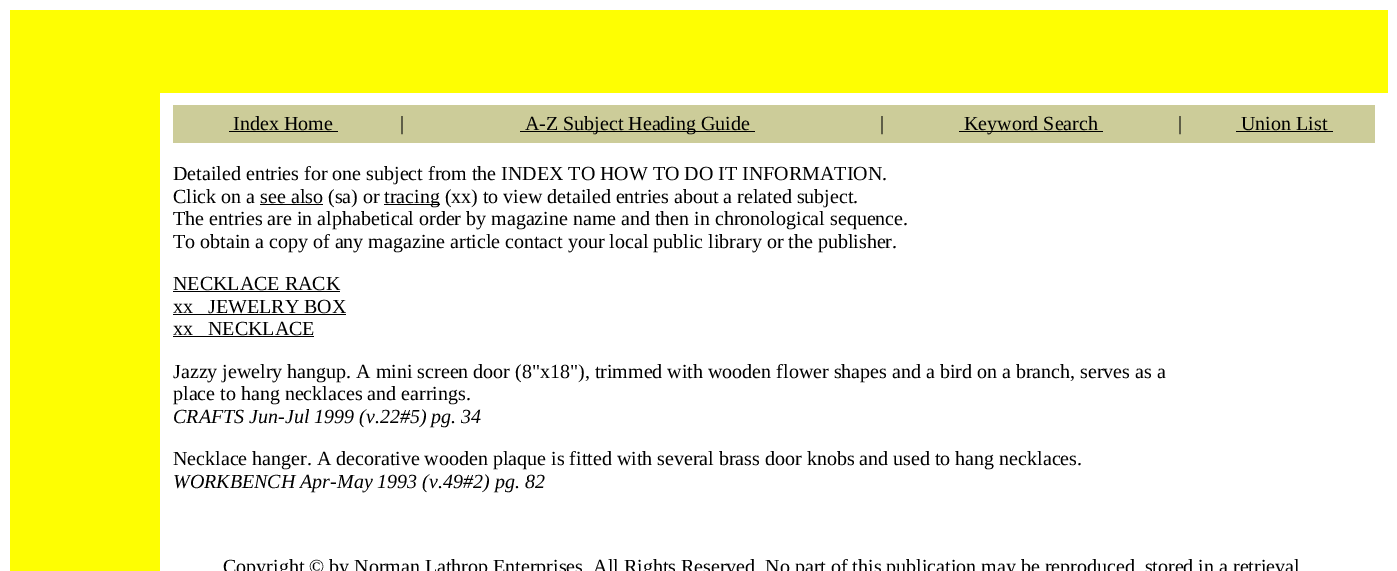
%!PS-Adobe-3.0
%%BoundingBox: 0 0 1397 571
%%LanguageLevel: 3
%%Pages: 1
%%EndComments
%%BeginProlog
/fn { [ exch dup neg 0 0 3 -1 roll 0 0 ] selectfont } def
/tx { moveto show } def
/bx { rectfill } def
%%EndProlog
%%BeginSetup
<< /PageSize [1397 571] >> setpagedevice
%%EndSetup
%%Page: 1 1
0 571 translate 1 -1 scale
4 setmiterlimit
1 setgray
0 0 1397 571 bx
0.996 0.996 0.008 setrgbcolor
10 10 1378 83 bx
10 93 150 478 bx
0.8 0.8 0.6 setrgbcolor
173 105 1202 38 bx
/LiberationSerif-Regular 20 fn
0 setgray
(Index Home) 233 130 tx
229 131 109 1 bx
(|) 400 130 tx
520 131 235 1 bx
(A-Z Subject Heading Guide) 525 130 tx
(|) 880 130 tx
959 131 144 1 bx
(Keyword Search) 964 130 tx
(|) 1178 130 tx
(Union List) 1241 130 tx
1236 131 97 1 bx
(Detailed entries for one subject from the INDEX TO HOW TO DO IT INFORMATION.) 173 180 tx
(Click on a see also \(sa\) or) 173 203 tx
384 204 56 1 bx
(tracing \(xx\) to view detailed entries about a related subject.) 384 203 tx
260 204 63 1 bx
(The entries are in alphabetical order by magazine name and then in chronological sequence.) 173 225 tx
(To obtain a copy of any magazine article contact your local public library or the publisher.) 173 248 tx
(NECKLACE RACK) 173 290 tx
173 291 167 1 bx
(xx   JEWELRY BOX) 173 313 tx
173 314 173 1 bx
(xx   NECKLACE) 173 335 tx
173 336 141 1 bx
(Jazzy jewelry hangup. A mini screen door \(8"x18"\), trimmed with wooden flower shapes and a bird on a branch, serves as a) 173 378 tx
(place to hang necklaces and earrings.) 173 400 tx
/LiberationSerif-Italic 20 fn
(CRAFTS Jun-Jul 1999 \(v.22#5\) pg. 34) 173 423 tx
/LiberationSerif-Regular 20 fn
(Necklace hanger. A decorative wooden plaque is fitted with several brass door knobs and used to hang necklaces.) 173 465 tx
/LiberationSerif-Italic 20 fn
(WORKBENCH Apr-May 1993 \(v.49#2\) pg. 82) 173 488 tx
/LiberationSerif-Regular 20 fn
(Copyright © by Norman Lathrop Enterprises. All Rights Reserved. No part of this publication may be reproduced, stored in a retrieval) 223 573 tx
showpage
%%EOF
